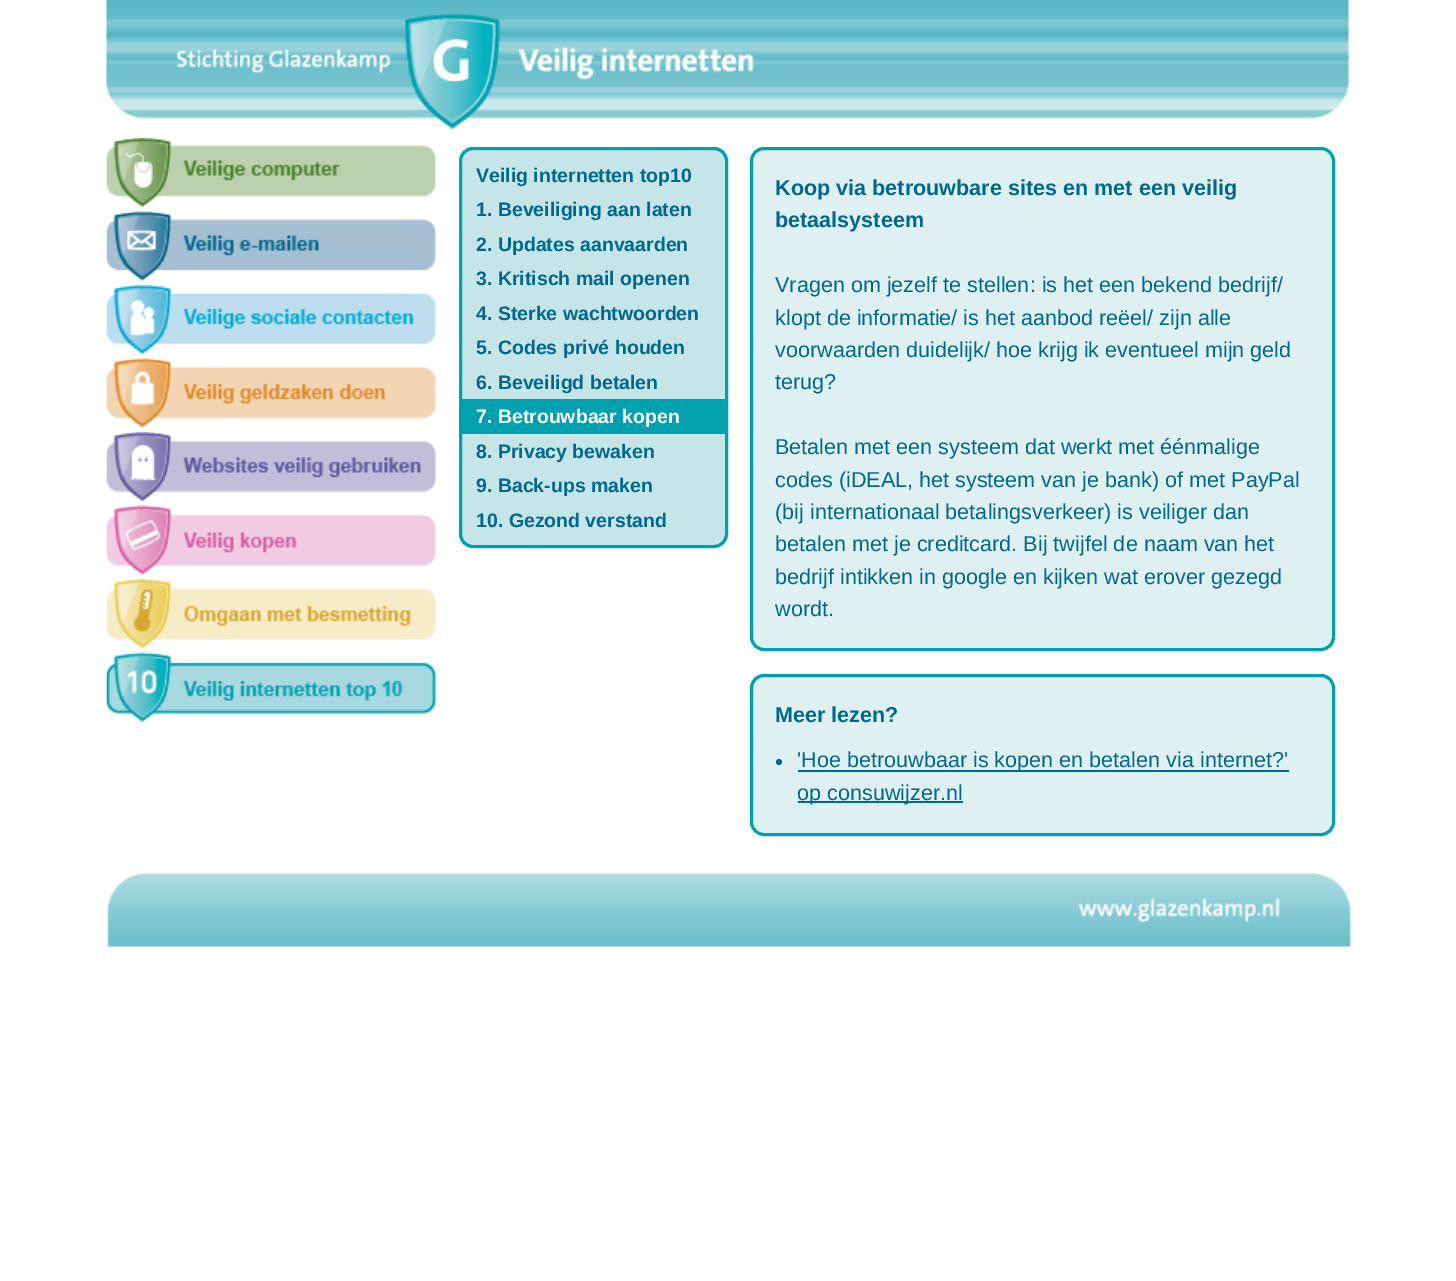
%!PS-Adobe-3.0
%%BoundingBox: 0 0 1456 1281
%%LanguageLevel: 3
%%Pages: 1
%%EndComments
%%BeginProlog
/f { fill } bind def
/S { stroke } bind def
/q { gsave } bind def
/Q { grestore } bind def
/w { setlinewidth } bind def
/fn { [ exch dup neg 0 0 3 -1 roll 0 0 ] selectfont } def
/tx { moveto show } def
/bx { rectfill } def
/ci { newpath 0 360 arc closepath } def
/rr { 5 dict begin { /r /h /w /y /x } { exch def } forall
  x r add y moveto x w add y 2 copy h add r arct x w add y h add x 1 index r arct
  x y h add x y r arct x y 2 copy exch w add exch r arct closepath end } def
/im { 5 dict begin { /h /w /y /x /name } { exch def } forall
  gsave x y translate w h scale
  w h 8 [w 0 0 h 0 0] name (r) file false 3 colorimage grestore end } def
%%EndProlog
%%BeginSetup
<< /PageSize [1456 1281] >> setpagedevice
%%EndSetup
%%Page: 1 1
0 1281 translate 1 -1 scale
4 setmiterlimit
1 setgray
0 0 1456 1281 bx
(image0.raw) 106 0 1243 129 im
(image1.raw) 106 138 331 69 im
(image2.raw) 106 211 331 70 im
(image3.raw) 106 285 331 69 im
(image4.raw) 106 358 331 70 im
(image5.raw) 106 432 331 69 im
(image6.raw) 106 505 331 70 im
(image7.raw) 106 579 331 69 im
(image8.raw) 106 652 331 70 im
0.773 0.898 0.91 setrgbcolor
460.5 148.5 266 398 12.5 rr q f Q
0 0.627 0.686 setrgbcolor
3 w
S
/LiberationSans-Bold 19.5 fn
0 0.408 0.561 setrgbcolor
(Veilig internetten top10) 476 182 tx
(1. Beveiliging aan laten) 476 216 tx
(2. Updates aanvaarden) 476 251 tx
(3. Kritisch mail openen) 476 285 tx
(4. Sterke wachtwoorden) 476 320 tx
(5. Codes privé houden) 476 354 tx
(6. Beveiligd betalen) 476 389 tx
0 0.627 0.686 setrgbcolor
462 399 263 35 bx
1 setgray
(7. Betrouwbaar kopen) 476 423 tx
0 0.408 0.561 setrgbcolor
(8. Privacy bewaken) 476 458 tx
(9. Back-ups maken) 476 492 tx
(10. Gezond verstand) 476 527 tx
0.875 0.941 0.949 setrgbcolor
751.5 148.5 582 501 12.5 rr q f Q
0 0.627 0.686 setrgbcolor
S
/LiberationSans-Bold 21.6 fn
0 0.408 0.561 setrgbcolor
(Koop via betrouwbare sites en met een veilig) 775 195 tx
(betaalsysteem) 775 227 tx
/LiberationSans-Regular 21.6 fn
(Vragen om jezelf te stellen: is het een bekend bedrijf/) 775 292 tx
(klopt de informatie/ is het aanbod reëel/ zijn alle) 775 325 tx
(voorwaarden duidelijk/ hoe krijg ik eventueel mijn geld) 775 357 tx
(terug?) 775 389 tx
(Betalen met een systeem dat werkt met éénmalige) 775 454 tx
(codes \(iDEAL, het systeem van je bank\) of met PayPal) 775 487 tx
(\(bij internationaal betalingsverkeer\) is veiliger dan) 775 519 tx
(betalen met je creditcard. Bij twijfel de naam van het) 775 551 tx
(bedrijf intikken in google en kijken wat erover gezegd) 775 584 tx
(wordt.) 775 616 tx
0.875 0.941 0.949 setrgbcolor
751.5 675.5 582 159 12.5 rr q f Q
0 0.627 0.686 setrgbcolor
S
/LiberationSans-Bold 21.6 fn
0 0.408 0.561 setrgbcolor
(Meer lezen?) 775 722 tx
779 762 3 ci f
798 770 491 2 bx
/LiberationSans-Regular 21.6 fn
('Hoe betrouwbaar is kopen en betalen via internet?') 797 767 tx
798 801 165 2 bx
(op consuwijzer.nl) 797 800 tx
(image9.raw) 106 873 1246 74 im
showpage
%%EOF
